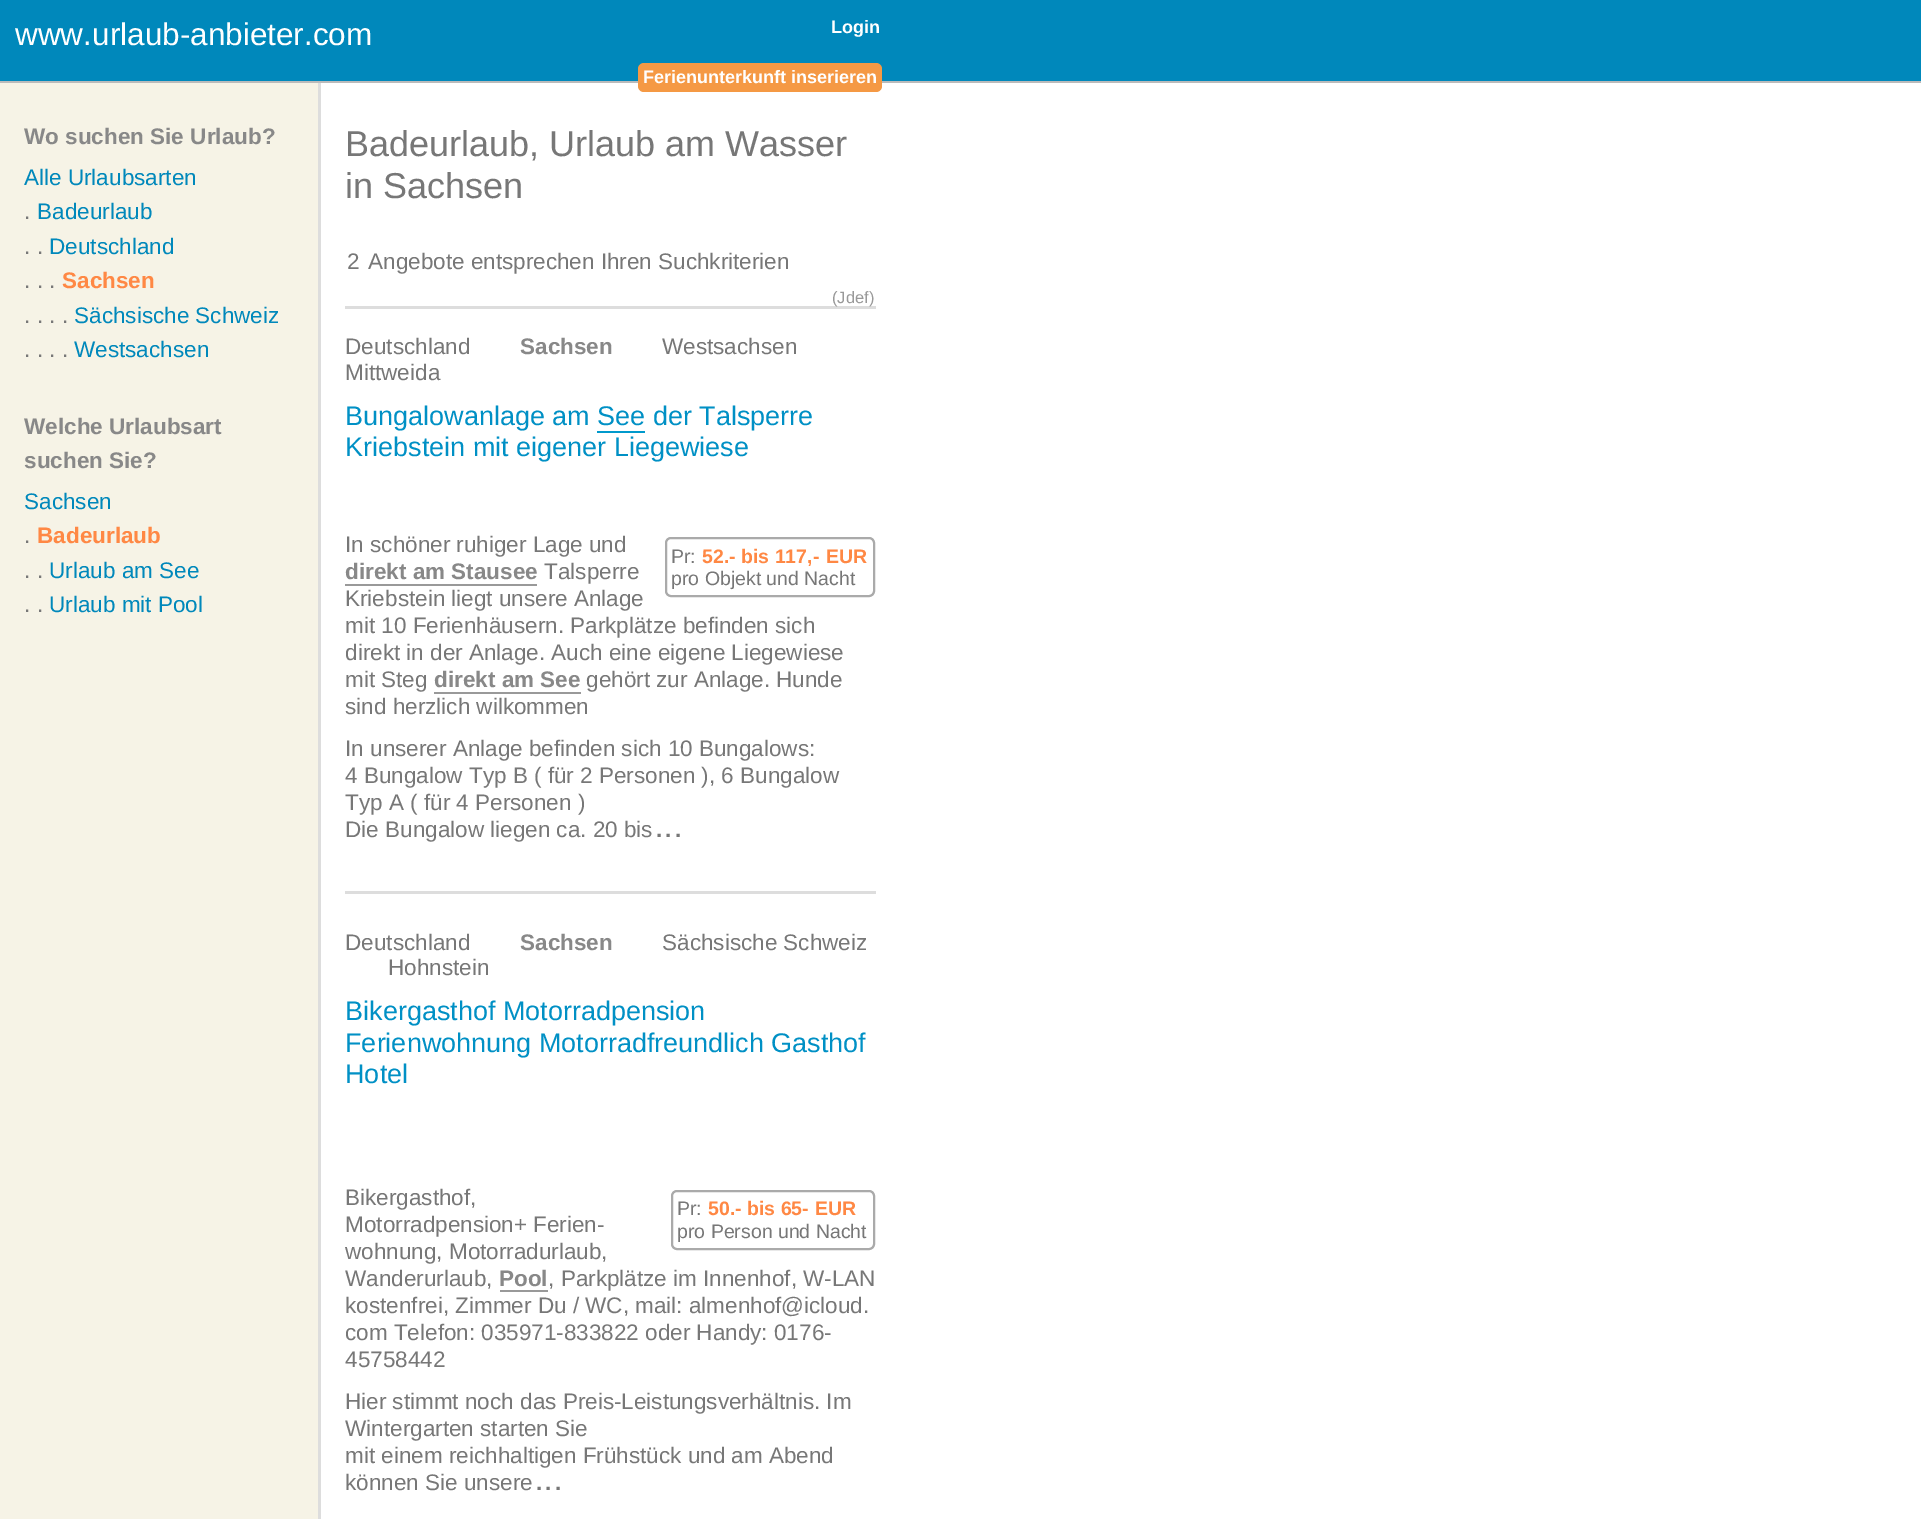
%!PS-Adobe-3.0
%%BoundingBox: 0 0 1921 1519
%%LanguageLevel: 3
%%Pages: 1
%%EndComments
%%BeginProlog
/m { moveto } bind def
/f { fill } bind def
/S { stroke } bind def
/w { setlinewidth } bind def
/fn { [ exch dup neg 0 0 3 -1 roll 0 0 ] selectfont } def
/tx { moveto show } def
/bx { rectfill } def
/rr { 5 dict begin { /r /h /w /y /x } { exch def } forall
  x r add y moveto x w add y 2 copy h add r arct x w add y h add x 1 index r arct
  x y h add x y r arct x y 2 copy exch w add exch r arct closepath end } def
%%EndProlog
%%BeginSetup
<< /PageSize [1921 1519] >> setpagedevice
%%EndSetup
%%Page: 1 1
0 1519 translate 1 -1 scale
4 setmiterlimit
0 0.533 0.733 setrgbcolor
0 0 1921 1519 bx
0.733 setgray
0 81 1921 2 bx
/LiberationSans-Regular 31.5 fn
1 setgray
(www.urlaub-anbieter.com) 15 45 tx
/LiberationSans-Bold 18 fn
(Login) 831 33 tx
321 83 1600 1436 bx
0.961 0.6 0.267 setrgbcolor
638 63 244 29 6 rr f
1 setgray
(Ferienunterkunft inserieren) 643 83 tx
0.965 0.953 0.902 setrgbcolor
0 83 318 1436 bx
/LiberationSans-Bold 22.5 fn
0.533 setgray
(Wo suchen Sie Urlaub?) 24 144 tx
/LiberationSans-Regular 22.5 fn
0 0.533 0.733 setrgbcolor
(Alle Urlaubsarten) 24 185 tx
0.467 setgray
(.) 24 219 tx
0 0.533 0.733 setrgbcolor
(Badeurlaub) 37 219 tx
0.467 setgray
(. .) 24 254 tx
0 0.533 0.733 setrgbcolor
(Deutschland) 49 254 tx
0.467 setgray
(. . .) 24 288 tx
/LiberationSans-Bold 22.5 fn
1 0.533 0.267 setrgbcolor
(Sachsen) 62 288 tx
/LiberationSans-Regular 22.5 fn
0.467 setgray
(. . . .) 24 323 tx
0 0.533 0.733 setrgbcolor
(Sächsische Schweiz) 74 323 tx
0.467 setgray
(. . . .) 24 357 tx
0 0.533 0.733 setrgbcolor
(Westsachsen) 74 357 tx
/LiberationSans-Bold 22.5 fn
0.533 setgray
(Welche Urlaubsart) 24 434 tx
(suchen Sie?) 24 468 tx
/LiberationSans-Regular 22.5 fn
0 0.533 0.733 setrgbcolor
(Sachsen) 24 509 tx
0.467 setgray
(.) 24 543 tx
/LiberationSans-Bold 22.5 fn
1 0.533 0.267 setrgbcolor
(Badeurlaub) 37 543 tx
/LiberationSans-Regular 22.5 fn
0.467 setgray
(. .) 24 578 tx
0 0.533 0.733 setrgbcolor
(Urlaub am See) 49 578 tx
0.467 setgray
(. .) 24 612 tx
0 0.533 0.733 setrgbcolor
(Urlaub mit Pool) 49 612 tx
0.867 setgray
318 83 3 1436 bx
/LiberationSans-Regular 36 fn
0.467 setgray
(Badeurlaub, Urlaub am Wasser) 345 156 tx
(in Sachsen) 345 198 tx
/LiberationSans-Regular 22.5 fn
(2) 347 269 tx
(Angebote entsprechen Ihren Suchkriterien) 368 269 tx
0.867 setgray
345 306 531 3 bx
/LiberationSans-Regular 16.5 fn
0.6 setgray
(\(Jdef\)) 832 303 tx
/LiberationSans-Regular 22.5 fn
0.467 setgray
(Deutschland) 345 354 tx
/LiberationSans-Bold 22.5 fn
0.533 setgray
(Sachsen) 520 354 tx
/LiberationSans-Regular 22.5 fn
0.467 setgray
(Westsachsen) 662 354 tx
(Mittweida) 345 380 tx
/LiberationSans-Regular 27 fn
0 0.565 0.773 setrgbcolor
(Bungalowanlage am See der Talsperre) 345 425 tx
0 0.6 0.8 setrgbcolor
597 431 48 2 bx
0 0.565 0.773 setrgbcolor
(Kriebstein mit eigener Liegewiese) 345 456 tx
/LiberationSans-Regular 22.5 fn
0.467 setgray
(In schöner ruhiger Lage und) 345 552 tx
/LiberationSans-Bold 22.5 fn
0.533 setgray
(direkt am Stausee) 345 579 tx
0.6 setgray
345 584 192 2 bx
/LiberationSans-Regular 22.5 fn
0.467 setgray
(Talsperre) 544 579 tx
(Kriebstein liegt unsere Anlage) 345 606 tx
(mit 10 Ferienhäusern. Parkplätze befinden sich) 345 633 tx
(direkt in der Anlage. Auch eine eigene Liegewiese) 345 660 tx
(mit Steg) 345 687 tx
/LiberationSans-Bold 22.5 fn
0.533 setgray
(direkt am See) 434 687 tx
0.6 setgray
434 692 147 2 bx
/LiberationSans-Regular 22.5 fn
0.467 setgray
(gehört zur Anlage. Hunde) 586 687 tx
(sind herzlich wilkommen) 345 714 tx
0.667 setgray
2 w
666 538 208 58 5 rr S
/LiberationSans-Regular 19.5 fn
0.467 setgray
(Pr:) 671 563 tx
/LiberationSans-Bold 19.5 fn
1 0.533 0.267 setrgbcolor
(52.- bis 117,-) 702 563 tx
(EUR) 826 563 tx
/LiberationSans-Regular 19.5 fn
0.467 setgray
(pro Objekt und Nacht) 671 585 tx
/LiberationSans-Regular 22.5 fn
(In unserer Anlage befinden sich 10 Bungalows:) 345 756 tx
(4 Bungalow Typ B \( für 2 Personen \), 6 Bungalow) 345 783 tx
(Typ A \( für 4 Personen \)) 345 810 tx
(Die Bungalow liegen ca. 20 bis) 345 837 tx
/LiberationSans-Bold 22.5 fn
656 837 m 3 0 (...) ashow
0.867 setgray
345 891 531 3 bx
/LiberationSans-Regular 22.5 fn
0.467 setgray
(Deutschland) 345 950 tx
/LiberationSans-Bold 22.5 fn
0.533 setgray
(Sachsen) 520 950 tx
/LiberationSans-Regular 22.5 fn
0.467 setgray
(Sächsische Schweiz) 662 950 tx
(Hohnstein) 388 975 tx
/LiberationSans-Regular 27 fn
0 0.565 0.773 setrgbcolor
(Bikergasthof Motorradpension) 345 1020 tx
(Ferienwohnung Motorradfreundlich Gasthof) 345 1052 tx
(Hotel) 345 1083 tx
/LiberationSans-Regular 22.5 fn
0.467 setgray
(Bikergasthof,) 345 1205 tx
(Motorradpension+ Ferien-) 345 1232 tx
(wohnung, Motorradurlaub,) 345 1259 tx
(Wanderurlaub,) 345 1286 tx
/LiberationSans-Bold 22.5 fn
0.533 setgray
(Pool) 499 1286 tx
0.6 setgray
500 1290 48 2 bx
/LiberationSans-Regular 22.5 fn
0.467 setgray
(, Parkplätze im Innenhof, W-LAN) 548 1286 tx
(kostenfrei, Zimmer Du / WC, mail: almenhof@icloud.) 345 1313 tx
(com Telefon: 035971-833822 oder Handy: 0176-) 345 1340 tx
(45758442) 345 1367 tx
0.667 setgray
672 1191 202 58 5 rr S
/LiberationSans-Regular 19.5 fn
0.467 setgray
(Pr:) 677 1215 tx
/LiberationSans-Bold 19.5 fn
1 0.533 0.267 setrgbcolor
(50.- bis 65-) 708 1215 tx
(EUR) 815 1215 tx
/LiberationSans-Regular 19.5 fn
0.467 setgray
(pro Person und Nacht) 677 1238 tx
/LiberationSans-Regular 22.5 fn
(Hier stimmt noch das Preis-Leistungsverhältnis. Im) 345 1409 tx
(Wintergarten starten Sie) 345 1436 tx
(mit einem reichhaltigen Frühstück und am Abend) 345 1463 tx
(können Sie unsere) 345 1490 tx
/LiberationSans-Bold 22.5 fn
536 1490 m 3 0 (...) ashow
showpage
%%EOF
